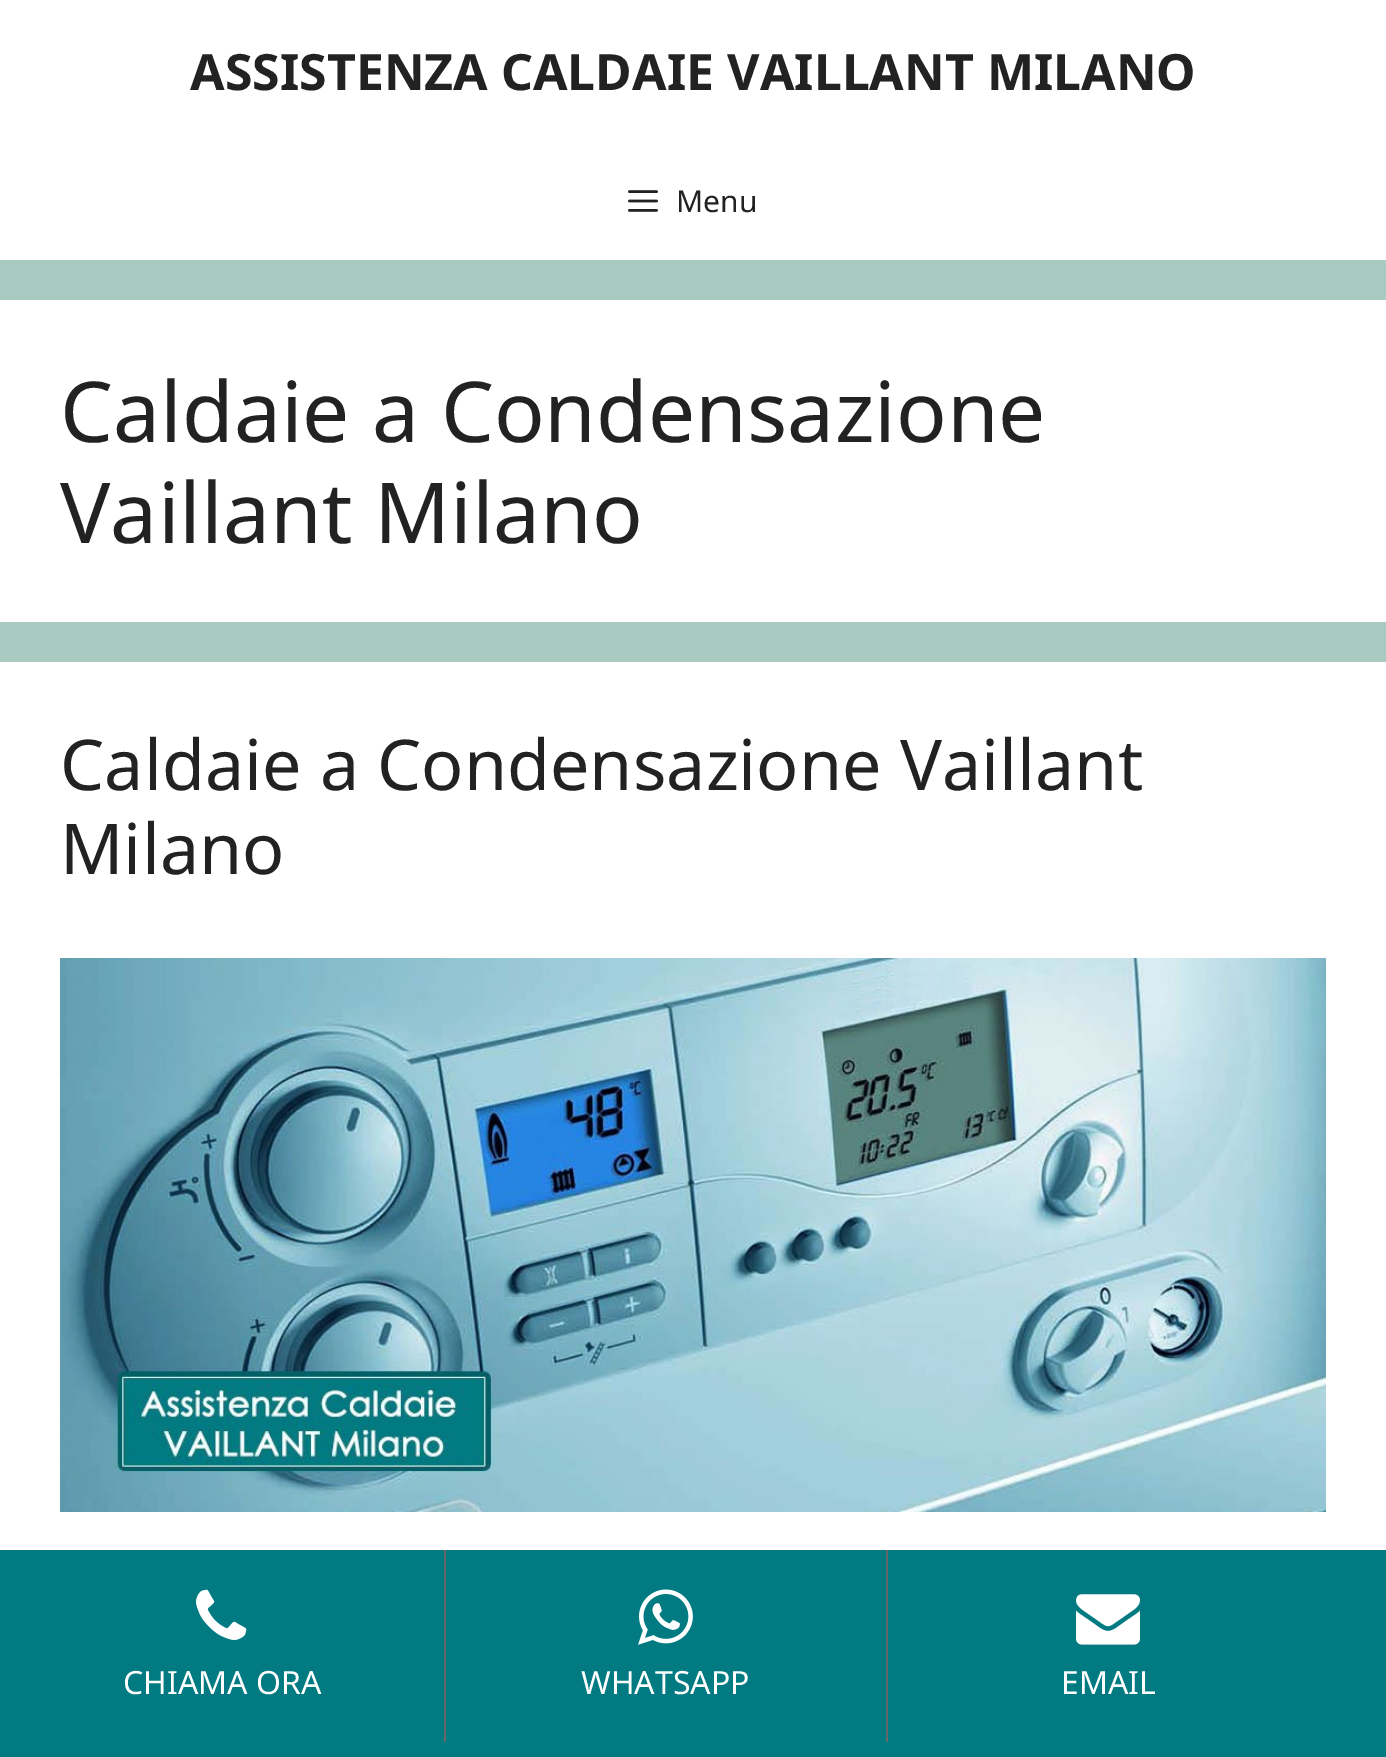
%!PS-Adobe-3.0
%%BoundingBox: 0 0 1386 1757
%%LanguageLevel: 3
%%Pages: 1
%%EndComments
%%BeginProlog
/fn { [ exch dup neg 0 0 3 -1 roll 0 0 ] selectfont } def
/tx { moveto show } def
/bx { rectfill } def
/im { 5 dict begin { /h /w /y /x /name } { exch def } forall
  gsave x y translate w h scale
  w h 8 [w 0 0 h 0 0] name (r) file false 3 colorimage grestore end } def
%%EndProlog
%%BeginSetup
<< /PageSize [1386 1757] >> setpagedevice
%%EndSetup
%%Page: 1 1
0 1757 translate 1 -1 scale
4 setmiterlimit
0.659 0.792 0.753 setrgbcolor
0 0 1386 1757 bx
1 setgray
0 0 1386 260 bx
/NotoSans-Bold 50 fn
0.133 setgray
(ASSISTENZA CALDAIE VAILLANT MILANO) 190 90 tx
(image0.raw) 628 190 30 22 im
/NotoSans-Regular 30 fn
(Menu) 676 212 tx
1 setgray
0 300 1386 322 bx
/NotoSans-Regular 84 fn
0.133 setgray
(Caldaie a Condensazione) 60 442 tx
(Vaillant Milano) 60 543 tx
1 setgray
0 662 1386 888 bx
/NotoSans-Regular 70 fn
0.133 setgray
(Caldaie a Condensazione Vaillant) 60 790 tx
(Milano) 60 874 tx
(image1.raw) 60 958 1266 554 im
0.004 0.478 0.506 setrgbcolor
0 1550 1386 207 bx
(image2.raw) 196 1589 51 51 im
/NotoSans-Regular 32 fn
1 setgray
(CHIAMA ORA) 123 1694 tx
0.4 setgray
886 1550 2 192 bx
444 1550 2 192 bx
(image3.raw) 638 1589 55 56 im
1 setgray
(WHATSAPP) 581 1694 tx
(image4.raw) 1076 1594 64 51 im
(EMAIL) 1061 1694 tx
showpage
%%EOF
